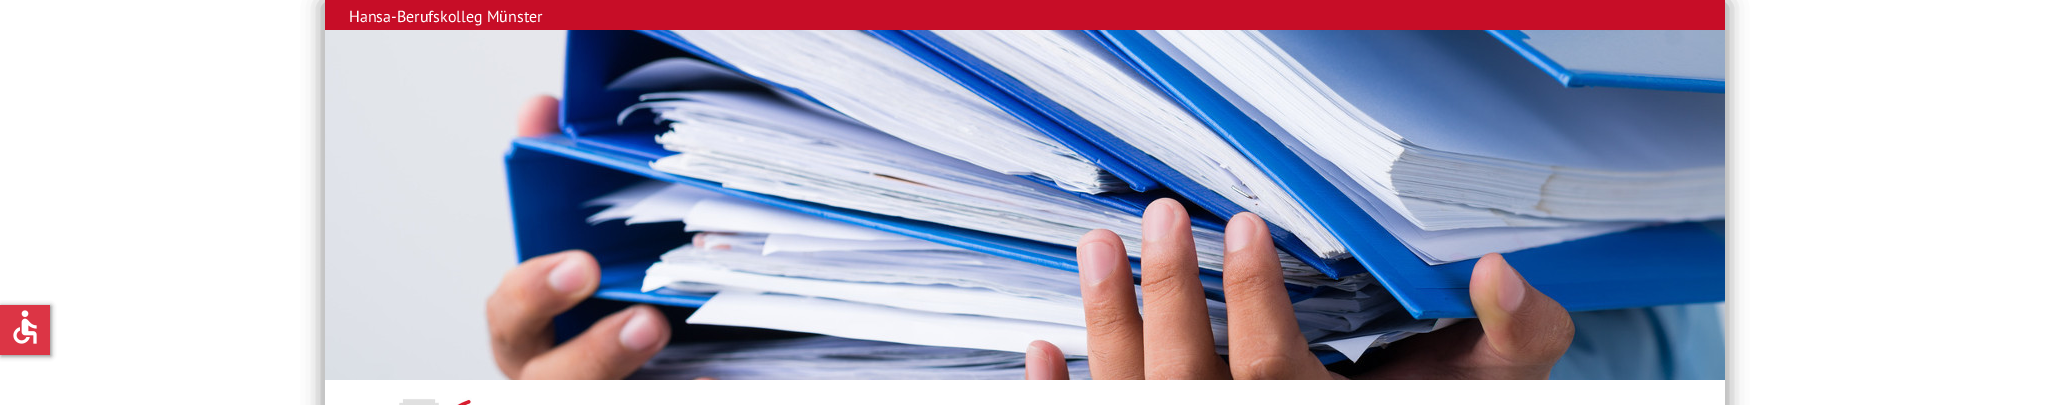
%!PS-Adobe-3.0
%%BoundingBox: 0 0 2050 405
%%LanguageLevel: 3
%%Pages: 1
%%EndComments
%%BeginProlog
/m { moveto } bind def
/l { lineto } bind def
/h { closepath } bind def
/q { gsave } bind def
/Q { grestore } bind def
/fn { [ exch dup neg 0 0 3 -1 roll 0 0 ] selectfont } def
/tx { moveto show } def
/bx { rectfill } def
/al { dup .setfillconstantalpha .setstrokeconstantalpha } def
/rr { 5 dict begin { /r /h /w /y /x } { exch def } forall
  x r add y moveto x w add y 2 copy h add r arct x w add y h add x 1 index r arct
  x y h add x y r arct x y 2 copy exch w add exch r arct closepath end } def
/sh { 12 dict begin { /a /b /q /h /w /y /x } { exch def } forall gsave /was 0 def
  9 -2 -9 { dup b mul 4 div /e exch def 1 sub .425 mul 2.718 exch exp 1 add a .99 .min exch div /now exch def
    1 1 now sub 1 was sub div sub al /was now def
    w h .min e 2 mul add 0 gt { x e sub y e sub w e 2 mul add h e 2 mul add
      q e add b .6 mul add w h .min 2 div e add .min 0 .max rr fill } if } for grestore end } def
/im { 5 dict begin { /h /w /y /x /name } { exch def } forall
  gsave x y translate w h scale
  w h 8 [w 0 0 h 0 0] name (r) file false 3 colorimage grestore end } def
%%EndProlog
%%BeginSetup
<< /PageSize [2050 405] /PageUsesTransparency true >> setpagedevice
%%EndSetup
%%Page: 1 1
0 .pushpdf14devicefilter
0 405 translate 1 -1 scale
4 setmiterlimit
1 setgray
0 0 2050 405 bx
q
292 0 m 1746 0 l 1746 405 l 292 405 l h 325 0 m 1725 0 l 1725 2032 l 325 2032 l h eoclip newpath
0.6 setgray
323 4 1392 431 0 10 1 sh
Q
q
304 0 m 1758 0 l 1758 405 l 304 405 l h 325 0 m 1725 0 l 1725 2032 l 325 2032 l h eoclip newpath
0.6 setgray
335 4 1392 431 0 10 1 sh
Q
0.78 0.051 0.153 setrgbcolor
325 0 1400 30 bx
/PTSans-Regular 16 fn
1 setgray
(Hansa-Berufskolleg Münster) 349 22 tx
(image0.raw) 325 30 1400 350 im
(image1.raw) 399 397 73 8 im
0 setgray
1 306 50 50 0 2.5 0.5 sh
0.863 0.208 0.271 setrgbcolor
0 305 50 50 bx
(image2.raw) 13 310 24 34 im
.poppdf14devicefilter showpage
%%EOF
